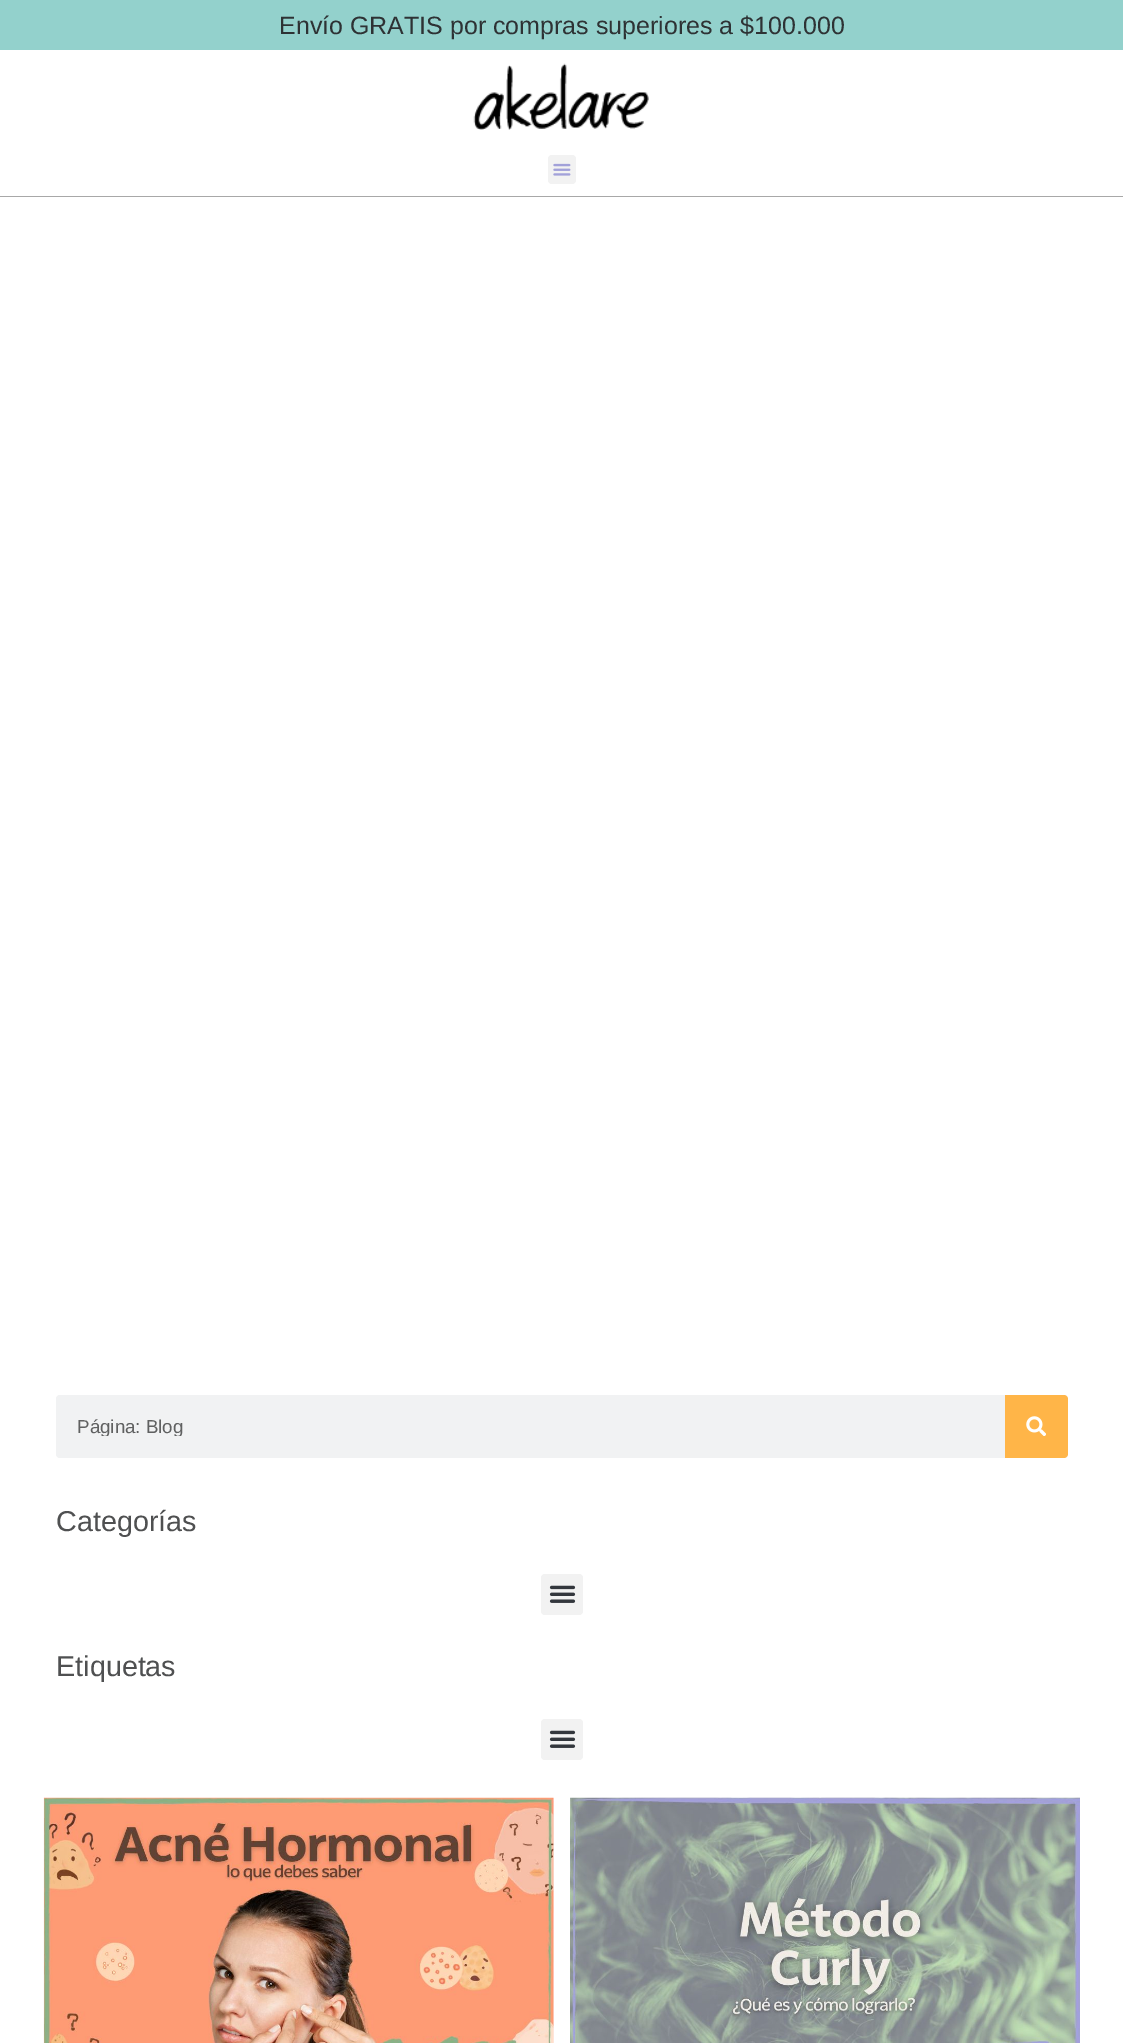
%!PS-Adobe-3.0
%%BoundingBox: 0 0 1123 2043
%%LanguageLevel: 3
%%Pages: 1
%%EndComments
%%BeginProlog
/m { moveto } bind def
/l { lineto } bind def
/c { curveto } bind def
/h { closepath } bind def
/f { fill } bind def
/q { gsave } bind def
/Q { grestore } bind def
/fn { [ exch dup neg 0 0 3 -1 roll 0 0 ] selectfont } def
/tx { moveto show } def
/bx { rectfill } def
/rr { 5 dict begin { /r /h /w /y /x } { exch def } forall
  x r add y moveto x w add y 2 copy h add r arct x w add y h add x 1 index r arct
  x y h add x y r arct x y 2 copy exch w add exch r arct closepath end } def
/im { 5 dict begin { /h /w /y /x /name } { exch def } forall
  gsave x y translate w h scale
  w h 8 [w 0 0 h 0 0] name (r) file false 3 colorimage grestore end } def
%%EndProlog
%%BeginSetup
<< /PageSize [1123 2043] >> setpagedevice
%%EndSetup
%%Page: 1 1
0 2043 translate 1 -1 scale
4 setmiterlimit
1 setgray
0 0 1123 2043 bx
0.659 setgray
0 196 1123 1 bx
0.576 0.82 0.8 setrgbcolor
0 0 1123 50 bx
/LiberationSans-Regular 25 fn
0.18 0.196 0.204 setrgbcolor
(Envío GRATIS por compras superiores a $100.000) 279 34 tx
(image0.raw) 473 63 176 67 im
0.949 setgray
548 155 28 29 4 rr f
(image1.raw) 553 163 18 13 im
0.945 0.949 0.953 setrgbcolor
56 1395 1012 63 4 rr f
q
78 1415 888 21 rectclip
/LiberationSans-Regular 18.75 fn
0.376 0.38 0.38 setrgbcolor
(Página: Blog) 77 1433 tx
Q
1 0.71 0.282 setrgbcolor
1005 1395 m 1064 1395 l 1066 1395 1068 1397 1068 1399 c 1068 1454 l 1068 1456 1066 1458 1064 1458 c 1005 1458 l h f
(image2.raw) 1026 1416 20 20 im
/LiberationSans-Regular 28.75 fn
0.31 0.314 0.318 setrgbcolor
(Categorías) 56 1531 tx
0.949 setgray
541 1574 42 41 4 rr f
(image3.raw) 549 1585 27 18 im
0.31 0.314 0.318 setrgbcolor
(Etiquetas) 56 1676 tx
0.949 setgray
541 1719 42 41 4 rr f
(image3.raw) 549 1730 27 18 im
(image4.raw) 43 1797 511 246 im
(image5.raw) 570 1797 510 246 im
showpage
%%EOF
